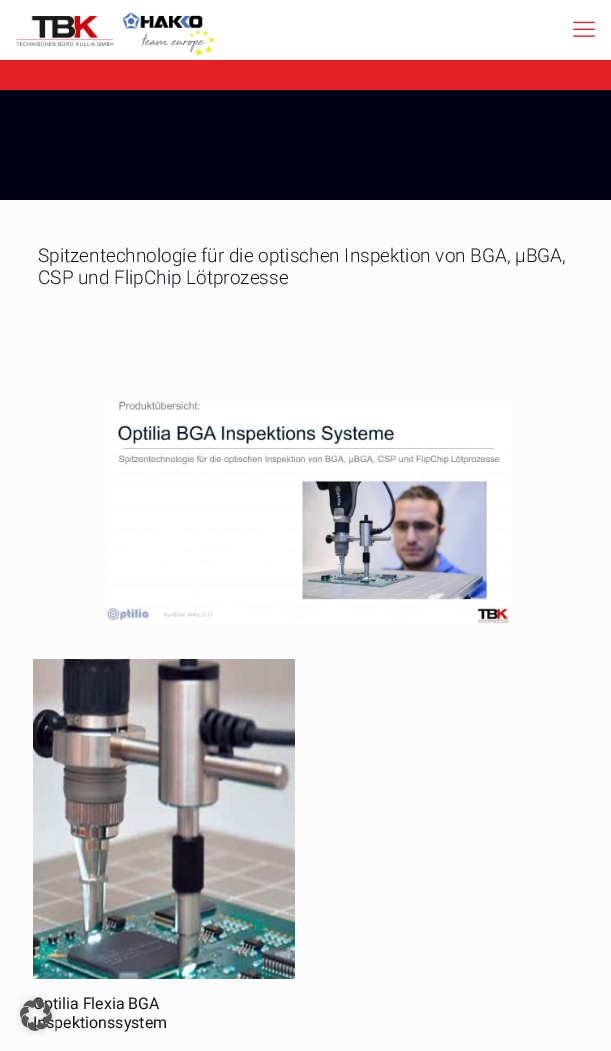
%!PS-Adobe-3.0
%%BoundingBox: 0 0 611 1051
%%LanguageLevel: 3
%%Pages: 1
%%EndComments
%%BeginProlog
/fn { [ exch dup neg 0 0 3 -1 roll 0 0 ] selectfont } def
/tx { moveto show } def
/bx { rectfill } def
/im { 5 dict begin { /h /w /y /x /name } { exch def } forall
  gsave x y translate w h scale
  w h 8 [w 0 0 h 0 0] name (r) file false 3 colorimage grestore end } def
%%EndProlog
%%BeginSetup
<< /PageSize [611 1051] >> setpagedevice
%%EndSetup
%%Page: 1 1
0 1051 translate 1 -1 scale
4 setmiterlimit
0.988 setgray
0 0 611 1051 bx
0 0.004 0.098 setrgbcolor
0 90 611 110 bx
1 setgray
0 0 611 60 bx
0.886 0.125 0.149 setrgbcolor
0 60 611 30 bx
(image0.raw) 16 12 199 44 im
(image1.raw) 573 21 22 16 im
/Roboto-Light 19 fn
0.086 0.098 0.133 setrgbcolor
(Spitzentechnologie für die optischen Inspektion von BGA, µBGA,) 38 262 tx
(CSP und FlipChip Lötprozesse) 38 284 tx
(image2.raw) 105 401 408 223 im
(image3.raw) 33 659 262 320 im
/Roboto-Regular 16 fn
(Optilia Flexia BGA) 33 1009 tx
(Inspektionssystem) 33 1028 tx
(image4.raw) 16 995 40 40 im
showpage
%%EOF
